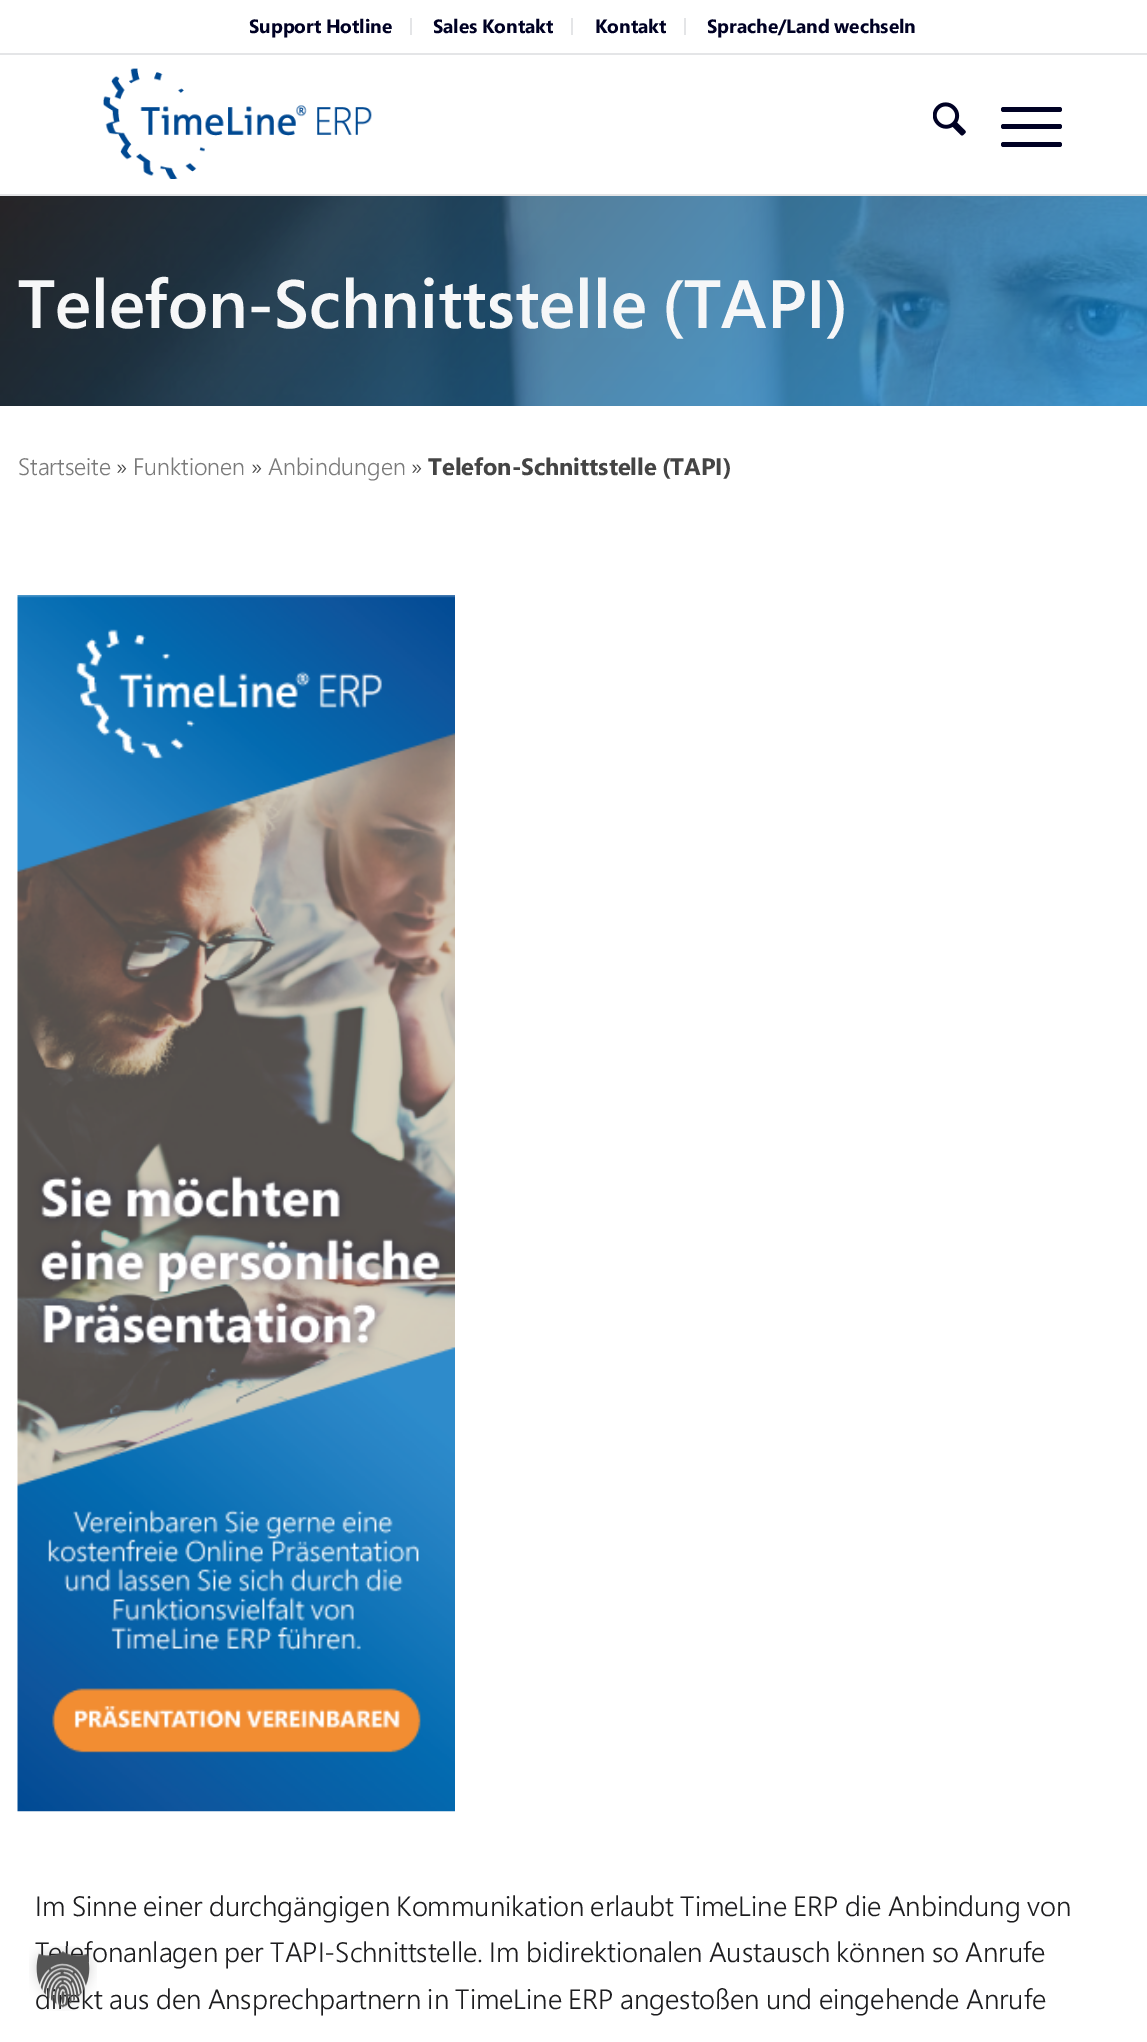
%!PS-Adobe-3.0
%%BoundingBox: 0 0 1147 2042
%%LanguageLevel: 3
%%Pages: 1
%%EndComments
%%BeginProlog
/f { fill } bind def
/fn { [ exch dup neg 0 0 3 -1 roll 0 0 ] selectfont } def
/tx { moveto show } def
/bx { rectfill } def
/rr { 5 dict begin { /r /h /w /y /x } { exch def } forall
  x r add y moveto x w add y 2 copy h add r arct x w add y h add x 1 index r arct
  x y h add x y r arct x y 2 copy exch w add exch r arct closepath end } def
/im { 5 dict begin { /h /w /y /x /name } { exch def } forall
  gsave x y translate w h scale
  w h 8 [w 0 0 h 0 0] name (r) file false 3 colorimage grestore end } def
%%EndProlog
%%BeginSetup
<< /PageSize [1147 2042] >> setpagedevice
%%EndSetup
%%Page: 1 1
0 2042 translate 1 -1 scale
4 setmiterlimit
1 setgray
0 0 1147 2042 bx
0.894 0.898 0.906 setrgbcolor
0 53 1147 2 bx
410 18 2 17 bx
/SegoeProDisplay-Bold 19.25 fn
0 0.004 0.141 setrgbcolor
(Support Hotline) 249 33 tx
0.894 0.898 0.906 setrgbcolor
571 18 2 17 bx
0 0.004 0.141 setrgbcolor
(Sales Kontakt) 433 33 tx
0.894 0.898 0.906 setrgbcolor
684 18 2 17 bx
0 0.004 0.141 setrgbcolor
(Kontakt) 595 33 tx
(Sprache/Land wechseln) 707 33 tx
0.894 0.898 0.906 setrgbcolor
0 194 1147 2 bx
(image0.raw) 103 68 269 111 im
(image1.raw) 933 102 33 34 im
0 0.004 0.141 setrgbcolor
1001 124 61 5 2.5 rr f
1001 107 61 5 2.5 rr f
1001 142 61 5 2.5 rr f
(image2.raw) 0 196 1147 210 im
/SegoeProDisplay-SemiBold 68.25 fn
0.965 0.969 0.973 setrgbcolor
(Telefon-Schnittstelle \(TAPI\)) 18 328 tx
/SegoeProDisplay-Light 23.75 fn
0.478 setgray
(Startseite) 18 475 tx
0.267 setgray
(») 116 475 tx
0.478 setgray
(Funktionen) 133 475 tx
0.267 setgray
(») 251 475 tx
0.478 setgray
(Anbindungen) 268 475 tx
0.267 setgray
(») 411 475 tx
/SegoeProDisplay-Bold 23.75 fn
(Telefon-Schnittstelle \(TAPI\)) 428 475 tx
(image3.raw) 17 595 438 1217 im
/SegoeProDisplay-Light 28 fn
0.114 0.114 0.122 setrgbcolor
(Im Sinne einer durchgängigen Kommunikation erlaubt TimeLine ERP die Anbindung von) 35 1916 tx
(Telefonanlagen per TAPI-Schnittstelle. Im bidirektionalen Austausch können so Anrufe) 35 1962 tx
(direkt aus den Ansprechpartnern in TimeLine ERP angestoßen und eingehende Anrufe) 35 2009 tx
(image4.raw) 29 1946 68 65 im
showpage
%%EOF
